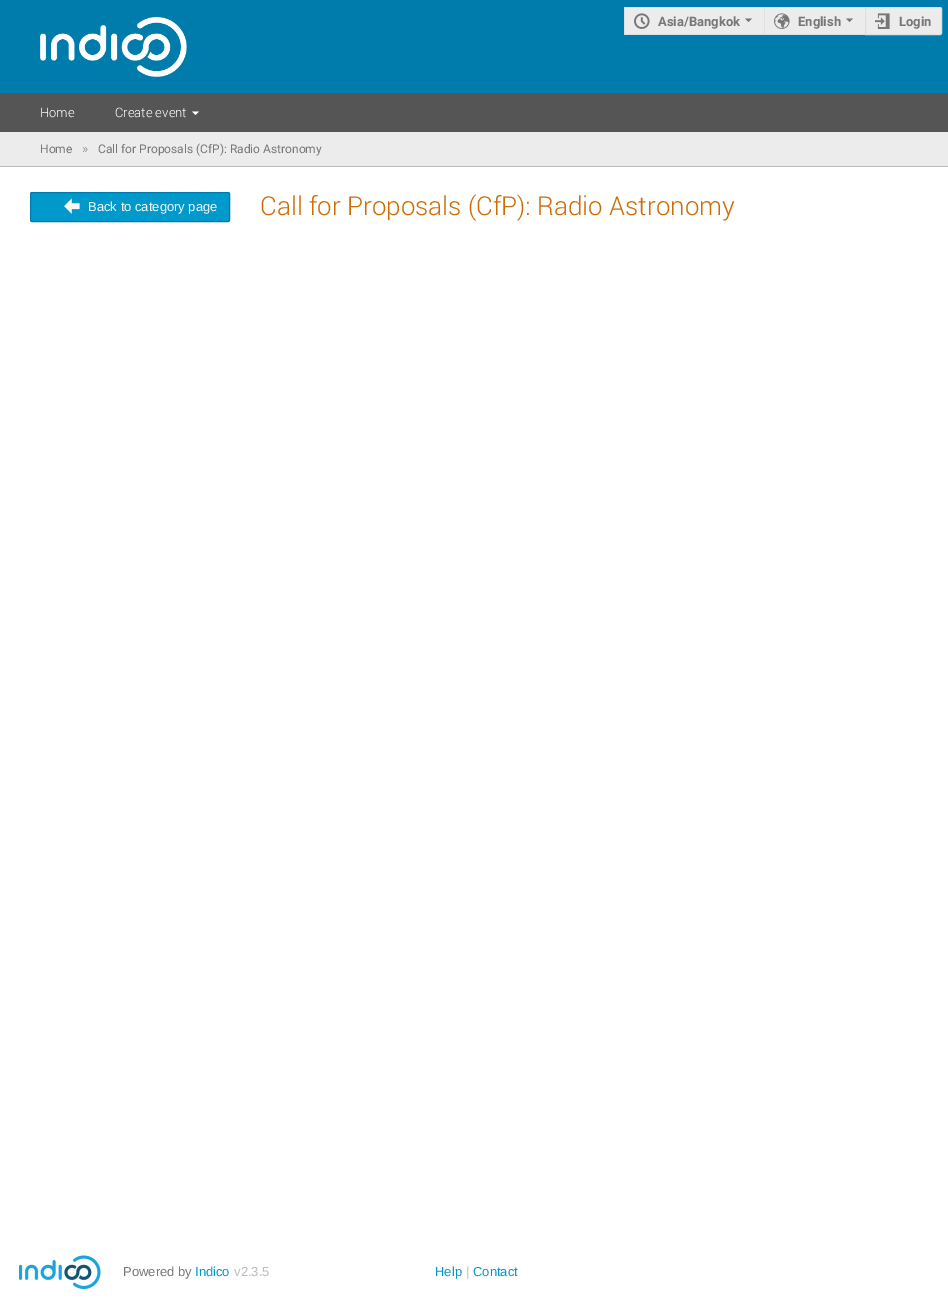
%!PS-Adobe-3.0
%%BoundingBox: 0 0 948 1315
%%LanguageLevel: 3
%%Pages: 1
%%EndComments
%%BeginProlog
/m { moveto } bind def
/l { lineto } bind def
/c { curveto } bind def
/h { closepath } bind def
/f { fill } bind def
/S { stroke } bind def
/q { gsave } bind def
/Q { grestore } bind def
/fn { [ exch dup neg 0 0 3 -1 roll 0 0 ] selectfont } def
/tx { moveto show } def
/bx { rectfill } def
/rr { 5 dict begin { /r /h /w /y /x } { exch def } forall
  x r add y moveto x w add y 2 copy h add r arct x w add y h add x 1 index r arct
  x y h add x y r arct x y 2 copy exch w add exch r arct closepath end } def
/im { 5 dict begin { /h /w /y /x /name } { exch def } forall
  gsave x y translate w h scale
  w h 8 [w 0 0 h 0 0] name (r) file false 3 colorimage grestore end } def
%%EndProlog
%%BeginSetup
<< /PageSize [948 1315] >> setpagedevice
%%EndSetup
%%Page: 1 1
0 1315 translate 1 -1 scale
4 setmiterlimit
1 setgray
0 0 948 1315 bx
0 0.486 0.675 setrgbcolor
0 0 948 93 bx
(image0.raw) 40 17 147 60 im
0.925 setgray
625 8 139 26 bx
0.875 setgray
624 7 241 1 bx
624 34 241 1 bx
624 7 1 28 bx
(image1.raw) 634 13 16 16 im
/Roboto-Bold 13 fn
0.467 setgray
(Asia/Bangkok) 658 26 tx
745 18.5 m 748.5 22 l 752 18.5 l h f
0.925 setgray
765 8 100 26 bx
0.875 setgray
764 7 1 28 bx
(image2.raw) 774 13 16 16 im
0.467 setgray
(English) 798 26 tx
846 18.5 m 849.5 22 l 853 18.5 l h f
0.925 setgray
865.5 7.5 m 940 7.5 l 941 7.5 941.5 8 941.5 9 c 941.5 33 l 941.5 34 941 34.5 940 34.5 c 865.5 34.5 l h q f Q
0.875 setgray
S
(image3.raw) 875 13 15 16 im
0.467 setgray
(Login) 899 26 tx
0.333 setgray
0 93 948 39 bx
/Roboto-Light 13 fn
1 setgray
(Home) 40 117 tx
(Create event) 115 117 tx
192 111.5 m 195.5 115 l 199 111.5 l h f
0.925 setgray
0 132 948 34 bx
0.733 setgray
0 166 948 1 bx
/Roboto-Regular 12 fn
0.467 setgray
(Home) 40 153 tx
/Roboto-Regular 13 fn
0.6 setgray
(») 82 153 tx
/Roboto-Regular 12 fn
0.467 setgray
(Call for Proposals \(CfP\): Radio Astronomy) 98 153 tx
0 0.6 0.8 setrgbcolor
30.5 192.5 199 29 1.5 rr q f Q
0 0.486 0.675 setrgbcolor
S
(image4.raw) 64 198 16 16 im
/LiberationSans-Regular 13 fn
0.976 setgray
(Back to category page) 88 211 tx
/Roboto-Light 26 fn
0.796 0.427 0.016 setrgbcolor
(Call for Proposals \(CfP\): Radio Astronomy) 260 215 tx
(image5.raw) 19 1255 82 34 im
/LiberationSans-Regular 13 fn
0.467 setgray
(Powered by) 123 1276 tx
0 0.6 0.8 setrgbcolor
(Indico) 195 1276 tx
0.733 setgray
(v2.3.5) 234 1276 tx
0 0.6 0.8 setrgbcolor
(Help) 435 1276 tx
0.733 setgray
(|) 466 1276 tx
0 0.6 0.8 setrgbcolor
(Contact) 473 1276 tx
showpage
%%EOF
